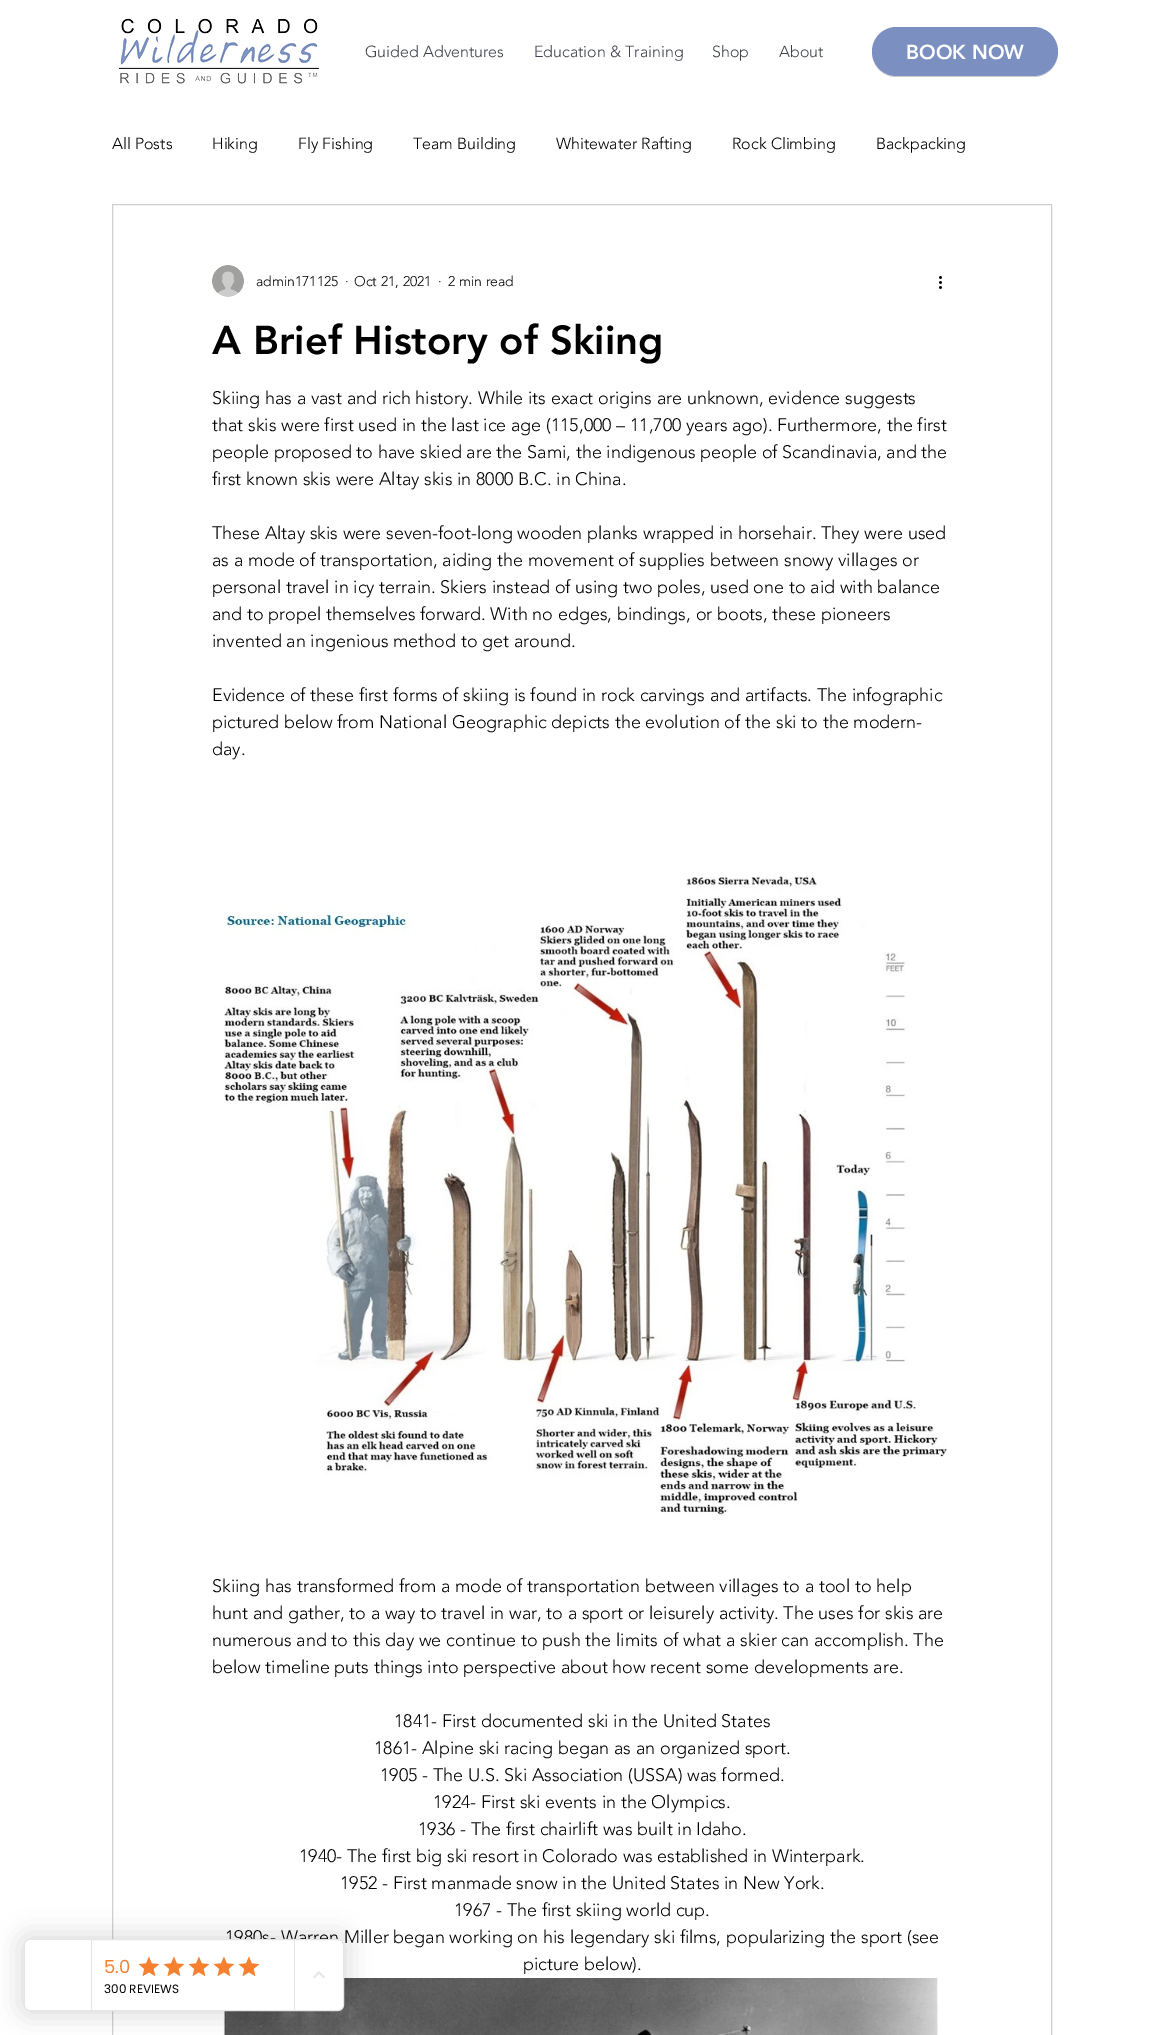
%!PS-Adobe-3.0
%%BoundingBox: 0 0 1164 2035
%%LanguageLevel: 3
%%Pages: 1
%%EndComments
%%BeginProlog
/m { moveto } bind def
/l { lineto } bind def
/c { curveto } bind def
/h { closepath } bind def
/f { fill } bind def
/S { stroke } bind def
/q { gsave } bind def
/Q { grestore } bind def
/fn { [ exch dup neg 0 0 3 -1 roll 0 0 ] selectfont } def
/tx { moveto show } def
/bx { rectfill } def
/al { dup .setfillconstantalpha .setstrokeconstantalpha } def
/rr { 5 dict begin { /r /h /w /y /x } { exch def } forall
  x r add y moveto x w add y 2 copy h add r arct x w add y h add x 1 index r arct
  x y h add x y r arct x y 2 copy exch w add exch r arct closepath end } def
/sh { 12 dict begin { /a /b /q /h /w /y /x } { exch def } forall gsave /was 0 def
  9 -2 -9 { dup b mul 4 div /e exch def 1 sub .425 mul 2.718 exch exp 1 add a .99 .min exch div /now exch def
    1 1 now sub 1 was sub div sub al /was now def
    w h .min e 2 mul add 0 gt { x e sub y e sub w e 2 mul add h e 2 mul add
      q e add b .6 mul add w h .min 2 div e add .min 0 .max rr fill } if } for grestore end } def
/im { 5 dict begin { /h /w /y /x /name } { exch def } forall
  gsave x y translate w h scale
  w h 8 [w 0 0 h 0 0] name (r) file false 3 colorimage grestore end } def
%%EndProlog
%%BeginSetup
<< /PageSize [1164 2035] /PageUsesTransparency true >> setpagedevice
%%EndSetup
%%Page: 1 1
0 .pushpdf14devicefilter
0 2035 translate 1 -1 scale
4 setmiterlimit
1 setgray
0 0 1164 2035 bx
(image0.raw) 119 18 201 66 im
/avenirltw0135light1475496-Light 16 fn
0.247 0.259 0.294 setrgbcolor
(Guided Adventures) 365 57 tx
(Education & Training) 534 57 tx
(Shop) 712 57 tx
(About) 779 57 tx
0.792 0.8 0.808 setrgbcolor
872 52 m 872 66 883 77 896 77 c 1034 77 l 1047 77 1058 66 1058 52 c 1058 65 1047 76 1034 76 c 896 76 l 883 76 872 65 872 52 c h f
0.482 0.565 0.757 setrgbcolor
872 27 186 49 24.5 rr f
/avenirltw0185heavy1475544-Black 20 fn
1 setgray
(BOOK NOW) 906 59 tx
/avenirltw0135light1475496-Light 16 fn
0 setgray
(All Posts) 112 149 tx
(Hiking) 212 149 tx
(Fly Fishing) 298 149 tx
(Team Building) 413 149 tx
(Whitewater Rafting) 556 149 tx
(Rock Climbing) 732 149 tx
(Backpacking) 876 149 tx
0.812 setgray
112.5 204.5 939 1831 rectstroke
(image1.raw) 212 265 32 32 im
/avenirltw0135light1475496-Light 14 fn
0 setgray
(admin171125) 256 286 tx
(·) 345 286 tx
(Oct 21, 2021) 354 286 tx
(·) 438 286 tx
(2 min read) 448 286 tx
(image2.raw) 939 276 3 13 im
/avenirltw0185heavy1475544-Black 40 fn
(A Brief History of Skiing) 212 354 tx
/avenirltw0135light1475496-Light 18 fn
(Skiing has a vast and rich history. While its exact origins are unknown, evidence suggests) 212 404 tx
(that skis were first used in the last ice age \(115,000 – 11,700 years ago\). Furthermore, the first) 212 431 tx
(people proposed to have skied are the Sami, the indigenous people of Scandinavia, and the) 212 458 tx
(first known skis were Altay skis in 8000 B.C. in China.) 212 485 tx
(These Altay skis were seven-foot-long wooden planks wrapped in horsehair. They were used) 212 539 tx
(as a mode of transportation, aiding the movement of supplies between snowy villages or) 212 566 tx
(personal travel in icy terrain. Skiers instead of using two poles, used one to aid with balance) 212 593 tx
(and to propel themselves forward. With no edges, bindings, or boots, these pioneers) 212 620 tx
(invented an ingenious method to get around.) 212 647 tx
(Evidence of these first forms of skiing is found in rock carvings and artifacts. The infographic) 212 701 tx
(pictured below from National Geographic depicts the evolution of the ski to the modern-) 212 728 tx
(day.) 212 755 tx
(image3.raw) 224 874 724 642 im
(Skiing has transformed from a mode of transportation between villages to a tool to help) 212 1592 tx
(hunt and gather, to a way to travel in war, to a sport or leisurely activity. The uses for skis are) 212 1619 tx
(numerous and to this day we continue to push the limits of what a skier can accomplish. The) 212 1646 tx
(below timeline puts things into perspective about how recent some developments are.) 212 1673 tx
(1841- First documented ski in the United States) 394 1727 tx
(1861- Alpine ski racing began as an organized sport.) 374 1754 tx
(1905 - The U.S. Ski Association \(USSA\) was formed.) 380 1781 tx
(1924- First ski events in the Olympics.) 433 1808 tx
(1936 - The first chairlift was built in Idaho.) 418 1835 tx
(1940- The first big ski resort in Colorado was established in Winterpark.) 299 1862 tx
(1952 - First manmade snow in the United States in New York.) 340 1889 tx
(1967 - The first skiing world cup.) 454 1916 tx
(1980s- Warren Miller began working on his legendary ski films, popularizing the sport \(see) 225 1943 tx
(picture below\).) 523 1970 tx
(image4.raw) 223 1978 715 57 im
18 1933 332 84 12 12 0.12 sh
1 setgray
24.5 1939.5 319 71 5.5 rr q f Q
0.898 setgray
S
1 setgray
31 1940 m 92 1940 l 92 2010 l 31 2010 l 27.5 2010 25 2007.5 25 2004 c 25 1946 l 25 1942.5 27.5 1940 31 1940 c h f
0.898 setgray
91 1940 1 70 bx
294 1940 1 70 bx
/Poppins-Regular 18 fn
0.969 0.502 0.184 setrgbcolor
(5.0) 104 1973 tx
(image6.raw) 138 1957 21 19 im
(image5.raw) 138 1956 22 21 im
(image6.raw) 163 1957 21 19 im
(image5.raw) 163 1956 22 21 im
(image6.raw) 188 1957 21 19 im
(image5.raw) 188 1956 22 21 im
(image6.raw) 213 1957 21 19 im
(image5.raw) 213 1956 22 21 im
(image6.raw) 238 1957 21 19 im
(image5.raw) 238 1956 22 21 im
/Poppins-Regular 12 fn
0 setgray
(300 REVIEWS) 104 1993 tx
(image7.raw) 313 1971 12 8 im
.poppdf14devicefilter showpage
%%EOF
